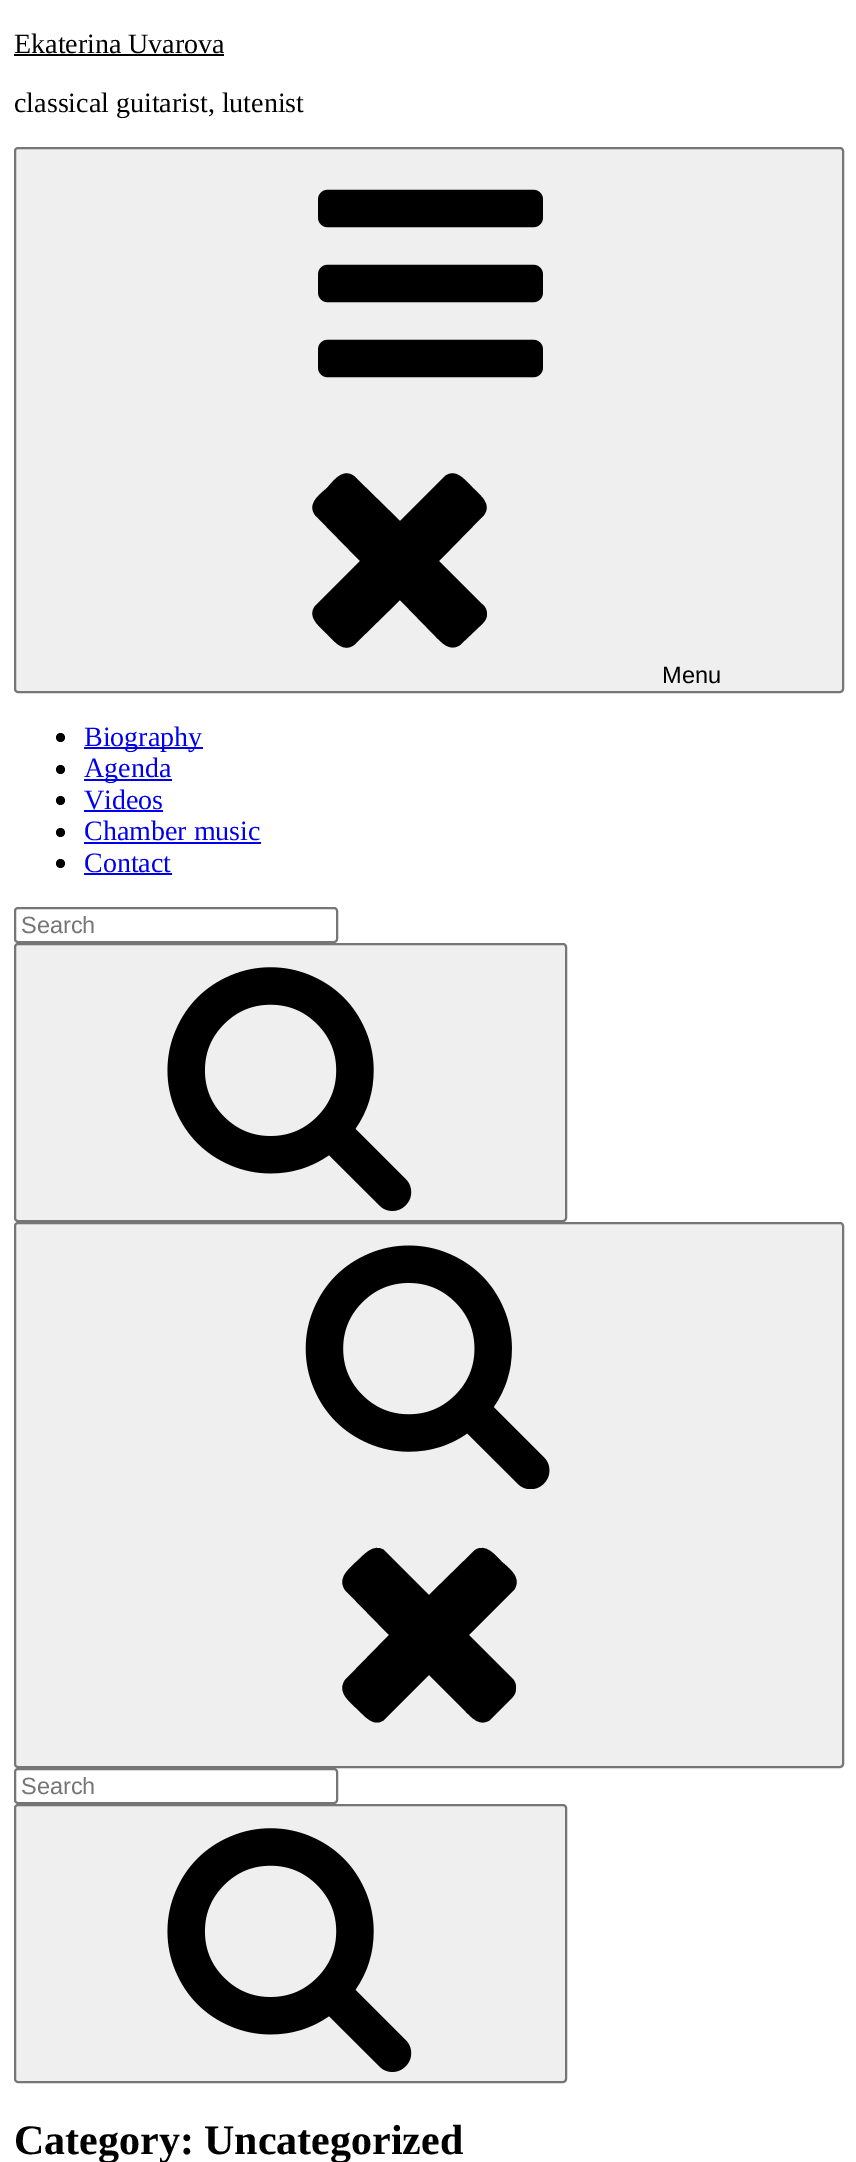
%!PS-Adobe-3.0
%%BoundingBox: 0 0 856 2162
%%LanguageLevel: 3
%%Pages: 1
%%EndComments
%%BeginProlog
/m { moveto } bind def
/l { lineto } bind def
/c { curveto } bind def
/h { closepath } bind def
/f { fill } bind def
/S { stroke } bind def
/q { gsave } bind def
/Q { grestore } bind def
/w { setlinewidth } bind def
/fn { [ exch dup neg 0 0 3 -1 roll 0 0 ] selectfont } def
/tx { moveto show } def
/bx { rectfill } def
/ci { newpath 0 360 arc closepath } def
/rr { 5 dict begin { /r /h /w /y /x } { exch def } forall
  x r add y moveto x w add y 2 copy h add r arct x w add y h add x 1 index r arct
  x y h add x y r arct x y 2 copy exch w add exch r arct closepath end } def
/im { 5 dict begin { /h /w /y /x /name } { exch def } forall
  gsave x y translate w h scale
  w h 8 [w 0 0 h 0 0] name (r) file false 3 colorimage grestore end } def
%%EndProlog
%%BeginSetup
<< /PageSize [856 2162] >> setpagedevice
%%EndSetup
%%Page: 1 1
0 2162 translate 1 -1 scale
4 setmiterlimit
1 setgray
0 0 856 2162 bx
/LiberationSerif-Regular 28 fn
0 setgray
(Ekaterina Uvarova) 14 53 tx
14 54 210 2 bx
(classical guitarist, lutenist) 14 112 tx
0.937 setgray
15 148 828 544 3 rr q f Q
0.463 setgray
2 w
S
(image0.raw) 318 189 225 189 im
0 setgray
487 614 m 487 620 483 623 479 627 c 460 645 l 450 652 442 643 435 636 c 400 600 l 354 645 l 343 653 334 641 327 634 c 319 626 307 617 315 606 c 360 561 l 315 515 l 307 504 319 495 327 488 c 334 480 343 468 354 476 c 400 521 l 445 476 l 456 468 465 480 473 488 c 480 495 492 504 484 515 c 439 561 l 482 604 l 485 606 487 610 487 614 c h f
/LiberationSans-Regular 23.5 fn
(Menu) 662 683 tx
60.5 737.5 4.5 ci f
0 0 0.933 setrgbcolor
84 747 119 2 bx
/LiberationSerif-Regular 28 fn
(Biography) 84 746 tx
0 setgray
60.5 769.5 4.5 ci f
0 0 0.933 setrgbcolor
84 779 88 2 bx
(Agenda) 84 777 tx
0 setgray
60.5 800.5 4.5 ci f
0 0 0.933 setrgbcolor
(Videos) 84 809 tx
84 810 79 2 bx
0 setgray
60.5 832.5 4.5 ci f
0 0 0.933 setrgbcolor
(Chamber music) 84 840 tx
84 842 177 2 bx
0 setgray
60.5 863.5 4.5 ci f
0 0 0.933 setrgbcolor
(Contact) 84 872 tx
84 873 88 2 bx
0.463 setgray
15 908 322 34 3 rr S
/LiberationSans-Regular 23.5 fn
0.459 setgray
(Search) 21 933 tx
0.937 setgray
15 944 551 277 3 rr q f Q
0.463 setgray
S
(image1.raw) 167 967 245 244 im
0.937 setgray
15 1223 828 544 3 rr q f Q
0.463 setgray
S
(image2.raw) 305 1245 245 244 im
0 setgray
516 1688 m 516 1694 513 1697 509 1701 c 490 1720 l 480 1727 472 1718 465 1711 c 429 1675 l 384 1720 l 373 1728 364 1715 356 1708 c 349 1701 337 1692 345 1680 c 389 1635 l 345 1590 l 337 1578 349 1569 356 1562 c 364 1555 373 1543 384 1550 c 429 1595 l 475 1550 l 486 1543 495 1555 502 1562 c 510 1569 522 1578 514 1590 c 469 1635 l 512 1678 l 515 1681 516 1684 516 1688 c h f
0.463 setgray
15 1769 322 34 3 rr S
0.459 setgray
(Search) 21 1794 tx
0.937 setgray
15 1805 551 277 3 rr q f Q
0.463 setgray
S
(image1.raw) 167 1828 245 244 im
/LiberationSerif-Bold 42 fn
0 setgray
(Category: Uncategorized) 14 2154 tx
showpage
%%EOF
